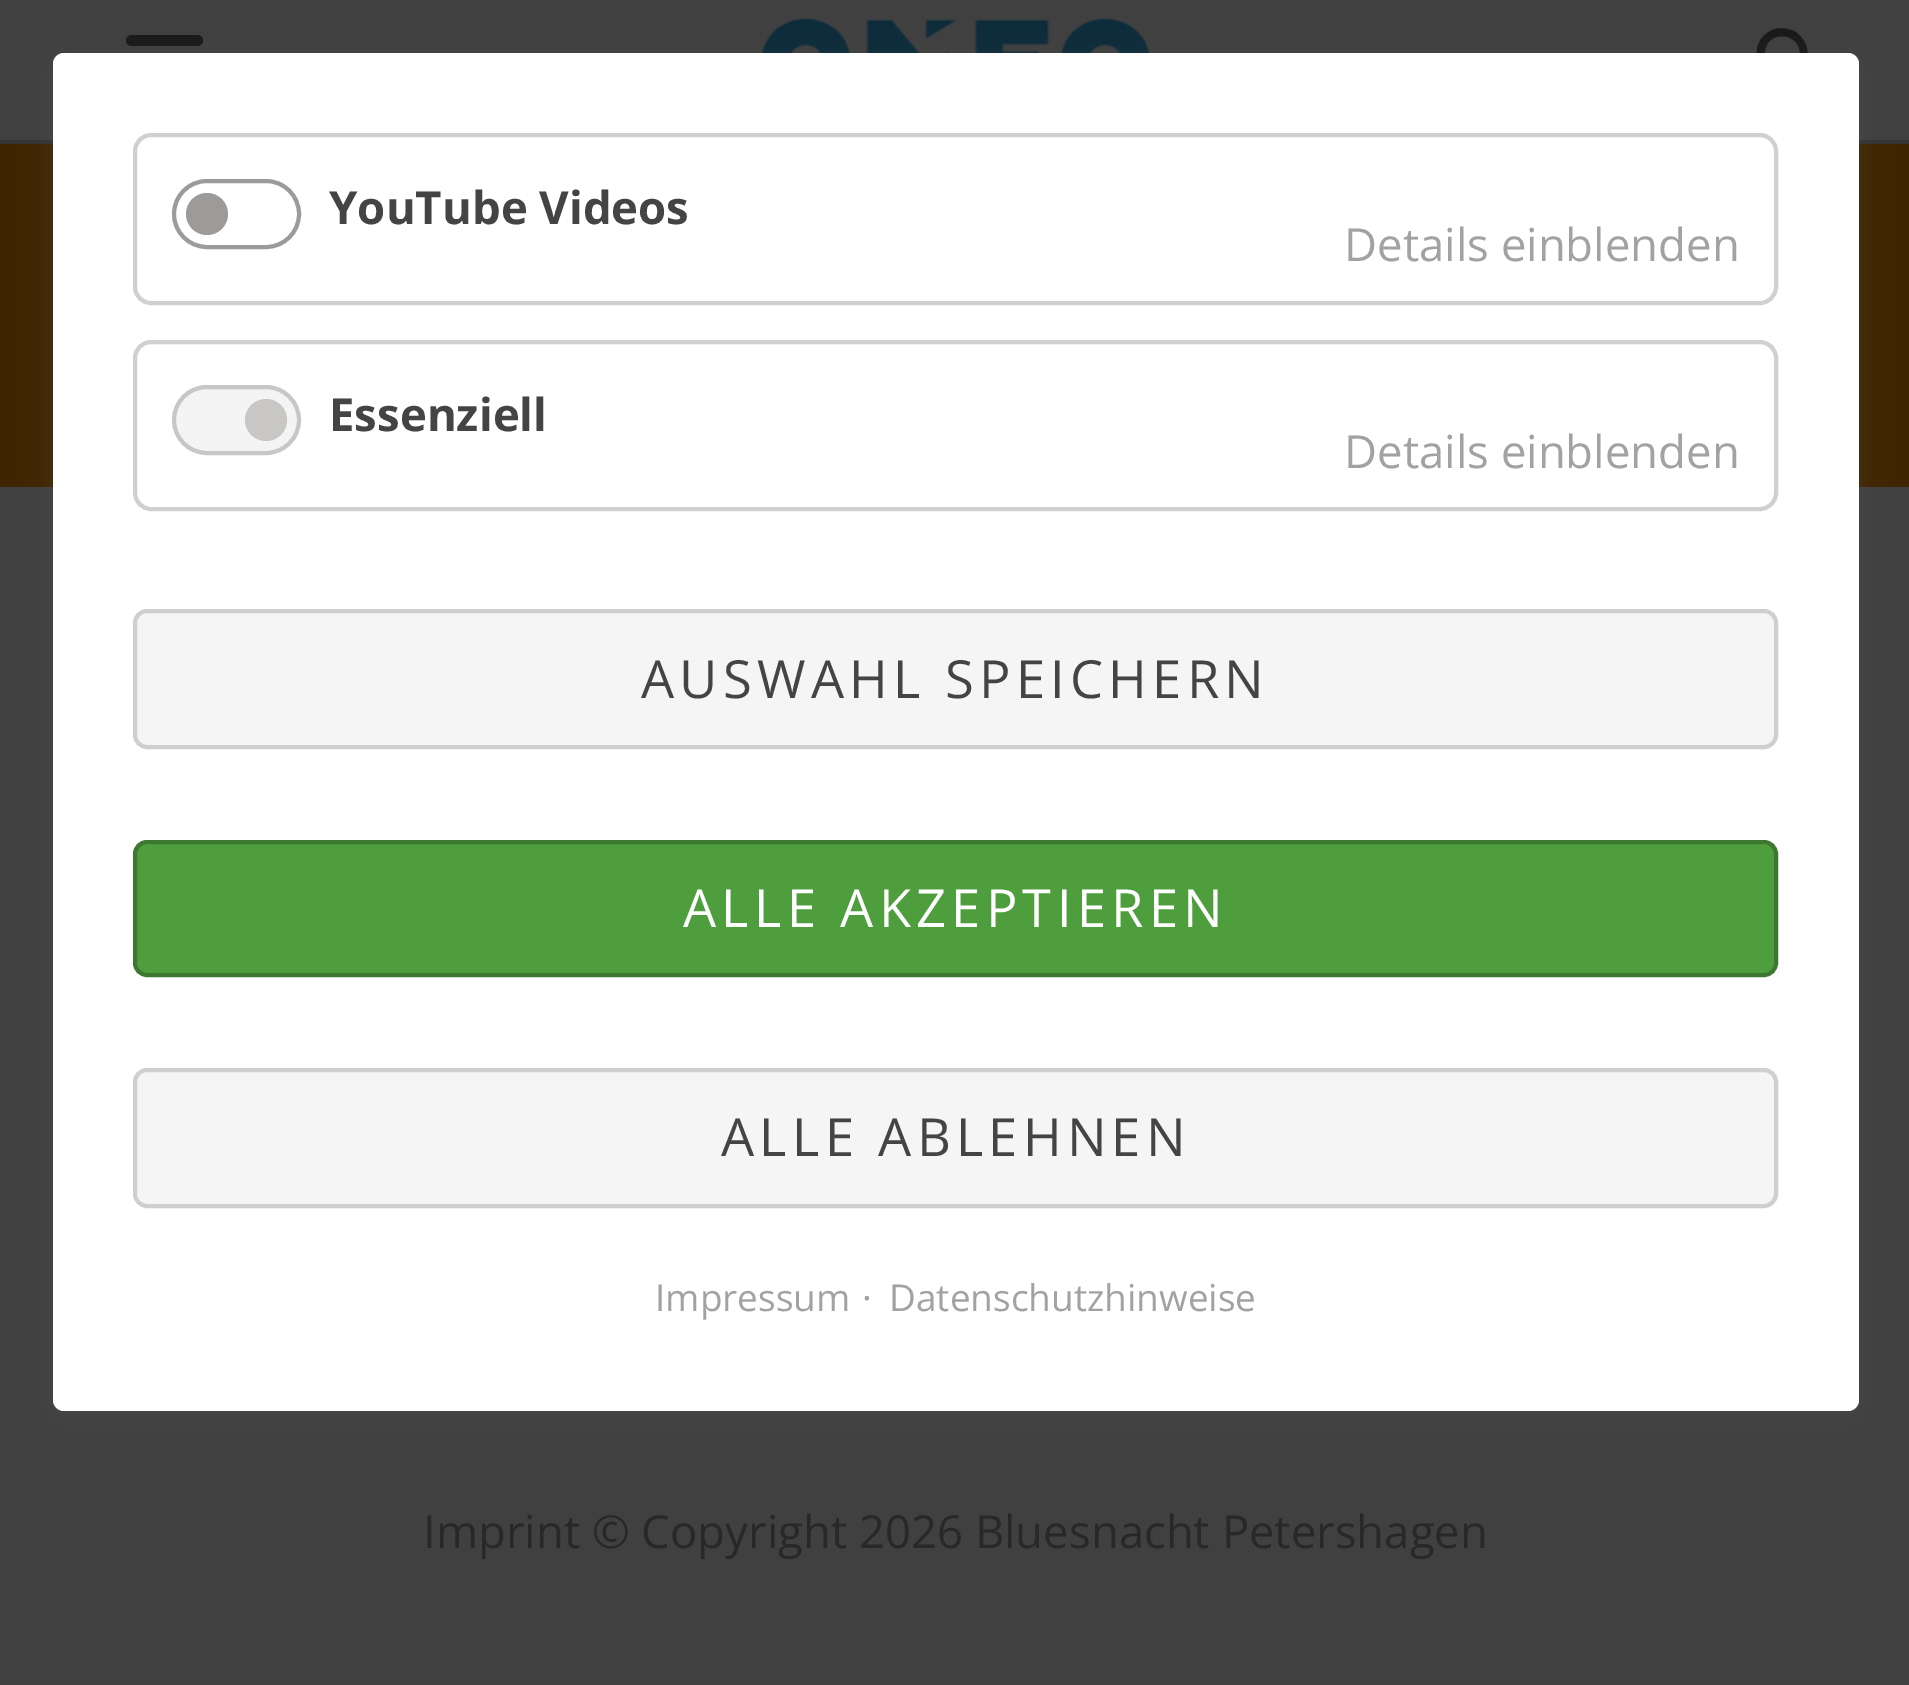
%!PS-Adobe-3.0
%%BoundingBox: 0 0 1909 1685
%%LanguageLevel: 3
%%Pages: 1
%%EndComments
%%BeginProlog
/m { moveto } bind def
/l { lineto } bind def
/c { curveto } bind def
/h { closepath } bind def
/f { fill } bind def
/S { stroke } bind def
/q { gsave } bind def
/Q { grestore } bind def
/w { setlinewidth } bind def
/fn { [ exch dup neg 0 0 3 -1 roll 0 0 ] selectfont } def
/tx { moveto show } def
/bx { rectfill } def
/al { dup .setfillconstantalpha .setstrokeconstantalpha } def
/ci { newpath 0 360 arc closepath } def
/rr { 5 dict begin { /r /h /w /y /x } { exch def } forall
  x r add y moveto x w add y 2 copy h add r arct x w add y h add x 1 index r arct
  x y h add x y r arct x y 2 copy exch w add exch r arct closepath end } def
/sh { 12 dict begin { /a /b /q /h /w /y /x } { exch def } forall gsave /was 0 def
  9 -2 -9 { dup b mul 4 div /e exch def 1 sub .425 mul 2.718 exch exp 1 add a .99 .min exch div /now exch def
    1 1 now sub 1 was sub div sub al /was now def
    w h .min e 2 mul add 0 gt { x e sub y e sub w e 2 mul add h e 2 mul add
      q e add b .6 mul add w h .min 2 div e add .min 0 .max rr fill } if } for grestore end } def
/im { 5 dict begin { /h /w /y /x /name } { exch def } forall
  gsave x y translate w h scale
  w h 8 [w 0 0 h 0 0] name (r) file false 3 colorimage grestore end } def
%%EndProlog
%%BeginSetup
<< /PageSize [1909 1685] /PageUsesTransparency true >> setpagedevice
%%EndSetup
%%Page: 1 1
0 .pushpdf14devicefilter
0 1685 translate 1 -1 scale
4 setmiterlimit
0.251 setgray
0 0 1909 1685 bx
0.212 0.204 0.2 setrgbcolor
0 140 1909 4 bx
0.09 0.098 0.102 setrgbcolor
126 35 77 11 5.5 rr f
(image0.raw) 760 18 391 35 im
1819 82 m 1804 67 l 1812 54 1806 38 1794 31 c 1787 28 1779 27 1772 30 c 1768 32 1764 35 1761 39 c 1746 61 1773 89 1795 75 c 1805 86 l 1810 90 1812 95 1817 89 c 1820 87 1822 85 1819 82 c h 1765 53 m 1765 30 1800 31 1800 54 c 1800 77 1765 76 1765 53 c h f
0.251 0.149 0 setrgbcolor
0 144 1909 343 bx
0.388 setgray
53 60 1806 1358 11 14 0.2 sh
1 setgray
53 53 1806 1358 11 rr f
0.816 setgray
4 w
135 135 1641 168 16 rr S
0.612 0.608 0.6 setrgbcolor
174 181 125 66 33 rr S
/OpenSans-Bold 45.5 fn
0.267 setgray
(YouTube Videos) 329 224 tx
0.612 0.608 0.6 setrgbcolor
207 214 21 ci f
/OpenSans-Regular 45.5 fn
0.635 setgray
(Details einblenden) 1344 261 tx
0.816 setgray
135 342 1641 167 16 rr S
0.957 setgray
174 387 125 66 33 rr q f Q
0.784 0.78 0.773 setrgbcolor
S
/OpenSans-Bold 45.5 fn
0.267 setgray
(Essenziell) 329 431 tx
0.784 0.78 0.773 setrgbcolor
266 420 21 ci f
/OpenSans-Regular 45.5 fn
0.635 setgray
(Details einblenden) 1344 468 tx
0.961 setgray
135 611 1641 136 12 rr q f Q
0.812 setgray
S
/OpenSans-Regular 52.5 fn
0.267 setgray
641 698 m 5.25 0 (AUSWAHL SPEICHERN) ashow
0.306 0.62 0.243 setrgbcolor
135 842 1641 133 12 rr q f Q
0.243 0.471 0.188 setrgbcolor
S
1 setgray
683 927 m 5.25 0 (ALLE AKZEPTIEREN) ashow
0.961 setgray
135 1070 1641 136 12 rr q f Q
0.812 setgray
S
0.267 setgray
721 1156 m 5.25 0 (ALLE ABLEHNEN) ashow
/OpenSans-Regular 37 fn
0.635 setgray
(Impressum) 655 1311 tx
(·) 862 1311 tx
(Datenschutzhinweise) 889 1311 tx
/OpenSans-Regular 45.5 fn
0.157 setgray
(Imprint © Copyright 2026 Bluesnacht Petershagen) 423 1548 tx
.poppdf14devicefilter showpage
%%EOF
